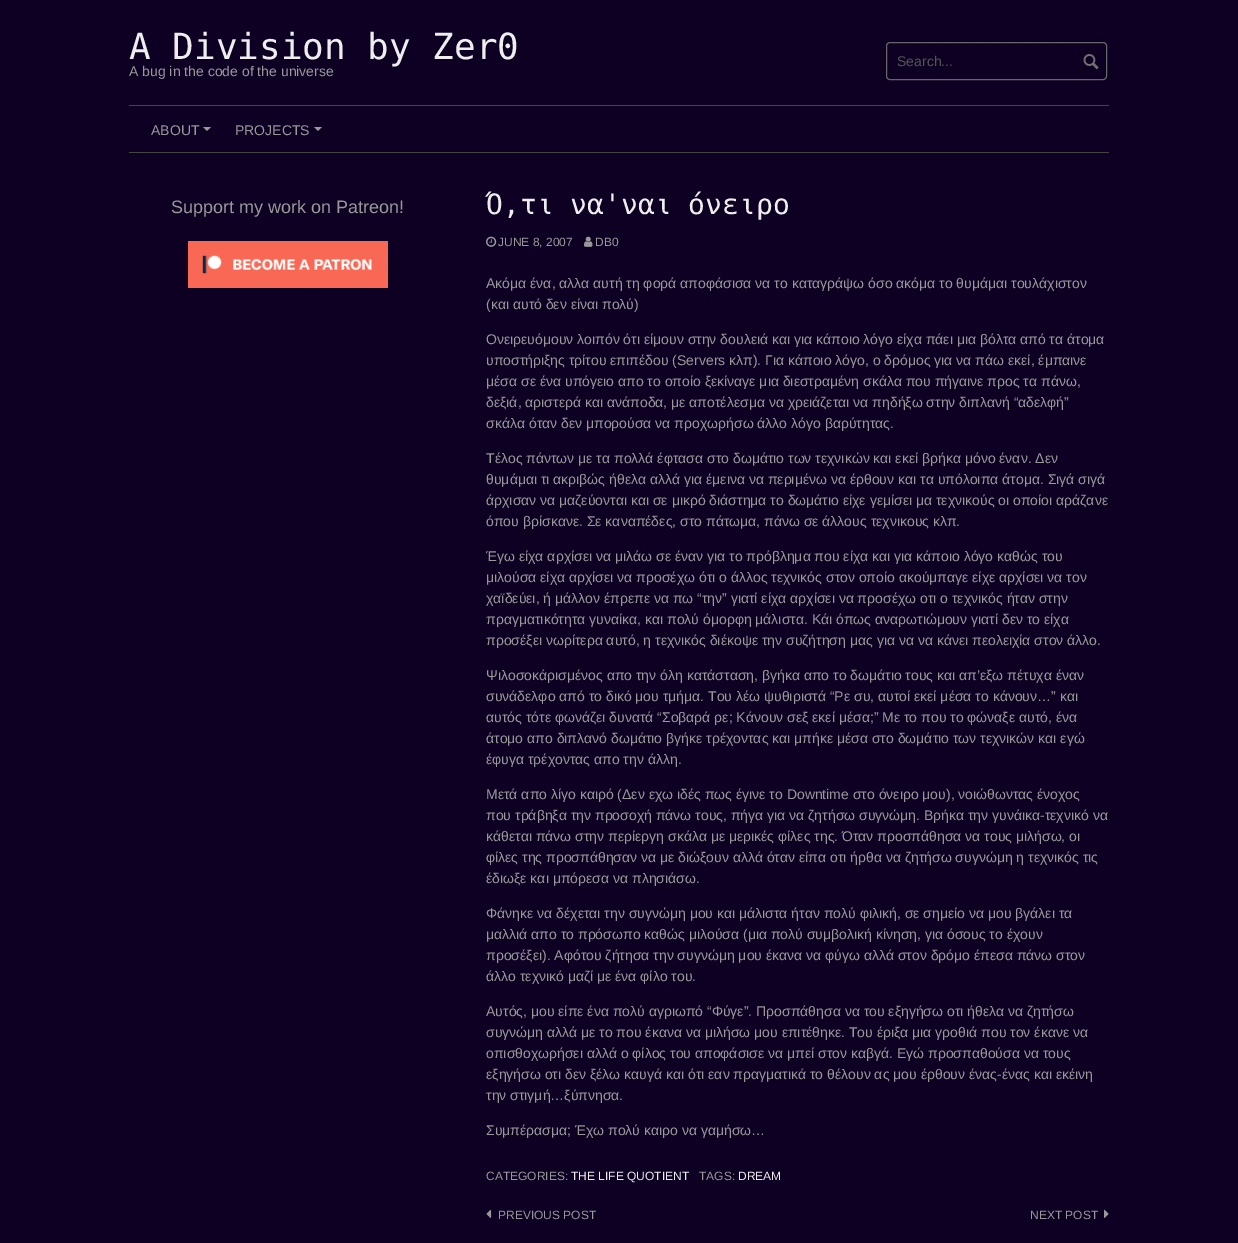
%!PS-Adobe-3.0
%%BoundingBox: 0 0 1238 1243
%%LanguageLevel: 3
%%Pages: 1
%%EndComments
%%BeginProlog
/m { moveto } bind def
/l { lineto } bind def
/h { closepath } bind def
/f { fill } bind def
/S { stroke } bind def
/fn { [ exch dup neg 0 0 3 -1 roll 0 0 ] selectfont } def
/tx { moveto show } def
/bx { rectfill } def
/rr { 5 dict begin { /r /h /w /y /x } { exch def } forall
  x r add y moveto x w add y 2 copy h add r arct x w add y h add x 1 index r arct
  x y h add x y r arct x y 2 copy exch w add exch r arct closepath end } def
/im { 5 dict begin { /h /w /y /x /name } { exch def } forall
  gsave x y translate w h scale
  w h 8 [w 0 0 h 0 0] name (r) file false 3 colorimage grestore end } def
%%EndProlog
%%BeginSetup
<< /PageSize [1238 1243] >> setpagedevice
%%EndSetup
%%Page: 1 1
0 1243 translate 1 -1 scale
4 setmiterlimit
0.051 0 0.137 setrgbcolor
0 0 1238 1243 bx
/DejaVuSansMono-Regular 36 fn
0.933 setgray
(A Division by Zer0) 129 59 tx
/LiberationSans-Regular 14 fn
0.6 setgray
(A bug in the code of the universe) 129 76 tx
0.4 setgray
886.5 42.5 220 37 3.5 rr S
0.333 setgray
(Search...) 897 66 tx
(image0.raw) 1083 54 16 16 im
0.267 setgray
129 105 980 1 bx
129 152 980 1 bx
0.6 setgray
(ABOUT) 151 135 tx
203 127 m 211 127 l 207 131 l h f
(PROJECTS) 235 135 tx
314 127 m 322 127 l 318 131 l h f
/LiberationSans-Regular 18 fn
(Support my work on Patreon!) 171 213 tx
(image1.raw) 188 241 200 47 im
/DejaVuSansMono-Regular 28 fn
0.933 setgray
(Ό,τι να'ναι όνειρο) 486 214 tx
(image2.raw) 486 236 11 11 im
/LiberationSans-Regular 12 fn
0.6 setgray
(JUNE 8, 2007) 498 246 tx
(image3.raw) 584 236 9 11 im
(DB0) 595 246 tx
/LiberationSans-Regular 14 fn
(Ακόμα ένα, αλλα αυτή τη φορά αποφάσισα να το καταγράψω όσο ακόμα το θυμάμαι τουλάχιστον) 486 288 tx
(\(και αυτό δεν είναι πολύ\)) 486 309 tx
(Ονειρευόμουν λοιπόν ότι είμουν στην δουλειά και για κάποιο λόγο είχα πάει μια βόλτα από τα άτομα) 486 344 tx
(υποστήριξης τρίτου επιπέδου \(Servers κλπ\). Για κάποιο λόγο, ο δρόμος για να πάω εκεί, έμπαινε) 486 365 tx
(μέσα σε ένα υπόγειο απο το οποίο ξεκίναγε μια διεστραμένη σκάλα που πήγαινε προς τα πάνω,) 486 386 tx
(δεξιά, αριστερά και ανάποδα, με αποτέλεσμα να χρειάζεται να πηδήξω στην διπλανή “αδελφή”) 486 407 tx
(σκάλα όταν δεν μπορούσα να προχωρήσω άλλο λόγο βαρύτητας.) 486 428 tx
(Τέλος πάντων με τα πολλά έφτασα στο δωμάτιο των τεχνικών και εκεί βρήκα μόνο έναν. Δεν) 486 463 tx
(θυμάμαι τι ακριβώς ήθελα αλλά για έμεινα να περιμένω να έρθουν και τα υπόλοιπα άτομα. Σιγά σιγά) 486 484 tx
(άρχισαν να μαζεύονται και σε μικρό διάστημα το δωμάτιο είχε γεμίσει μα τεχνικούς οι οποίοι αράζανε) 486 505 tx
(όπου βρίσκανε. Σε καναπέδες, στο πάτωμα, πάνω σε άλλους τεχνικους κλπ.) 486 526 tx
(Έγω είχα αρχίσει να μιλάω σε έναν για το πρόβλημα που είχα και για κάποιο λόγο καθώς του) 486 561 tx
(μιλούσα είχα αρχίσει να προσέχω ότι ο άλλος τεχνικός στον οποίο ακούμπαγε είχε αρχίσει να τον) 486 582 tx
(χαϊδεύει, ή μάλλον έπρεπε να πω “την” γιατί είχα αρχίσει να προσέχω οτι ο τεχνικός ήταν στην) 486 603 tx
(πραγματικότητα γυναίκα, και πολύ όμορφη μάλιστα. Κάι όπως αναρωτιώμουν γιατί δεν το είχα) 486 624 tx
(προσέξει νωρίτερα αυτό, η τεχνικός διέκοψε την συζήτηση μας για να να κάνει πεολειχία στον άλλο.) 486 645 tx
(Ψιλοσοκάρισμένος απο την όλη κατάσταση, βγήκα απο το δωμάτιο τους και απ’εξω πέτυχα έναν) 486 680 tx
(συνάδελφο από το δικό μου τμήμα. Του λέω ψυθιριστά “Ρε συ, αυτοί εκεί μέσα το κάνουν…” και) 486 701 tx
(αυτός τότε φωνάζει δυνατά “Σοβαρά ρε; Κάνουν σεξ εκεί μέσα;” Με το που το φώναξε αυτό, ένα) 486 722 tx
(άτομο απο διπλανό δωμάτιο βγήκε τρέχοντας και μπήκε μέσα στο δωμάτιο των τεχνικών και εγώ) 486 743 tx
(έφυγα τρέχοντας απο την άλλη.) 486 764 tx
(Μετά απο λίγο καιρό \(Δεν εχω ιδές πως έγινε το Downtime στο όνειρο μου\), νοιώθωντας ένοχος) 486 799 tx
(που τράβηξα την προσοχή πάνω τους, πήγα για να ζητήσω συγνώμη. Βρήκα την γυνάικα-τεχνικό να) 486 820 tx
(κάθεται πάνω στην περίεργη σκάλα με μερικές φίλες της. Όταν προσπάθησα να τους μιλήσω, οι) 486 841 tx
(φίλες της προσπάθησαν να με διώξουν αλλά όταν είπα οτι ήρθα να ζητήσω συγνώμη η τεχνικός τις) 486 862 tx
(έδιωξε και μπόρεσα να πλησιάσω.) 486 883 tx
(Φάνηκε να δέχεται την συγνώμη μου και μάλιστα ήταν πολύ φιλική, σε σημείο να μου βγάλει τα) 486 918 tx
(μαλλιά απο το πρόσωπο καθώς μιλούσα \(μια πολύ συμβολική κίνηση, για όσους το έχουν) 486 939 tx
(προσέξει\). Αφότου ζήτησα την συγνώμη μου έκανα να φύγω αλλά στον δρόμο έπεσα πάνω στον) 486 960 tx
(άλλο τεχνικό μαζί με ένα φίλο του.) 486 981 tx
(Αυτός, μου είπε ένα πολύ αγριωπό “Φύγε”. Προσπάθησα να του εξηγήσω οτι ήθελα να ζητήσω) 486 1016 tx
(συγνώμη αλλά με το που έκανα να μιλήσω μου επιτέθηκε. Του έριξα μια γροθιά που τον έκανε να) 486 1037 tx
(οπισθοχωρήσει αλλά ο φίλος του αποφάσισε να μπεί στον καβγά. Εγώ προσπαθούσα να τους) 486 1058 tx
(εξηγήσω οτι δεν ξέλω καυγά και ότι εαν πραγματικά το θέλουν ας μου έρθουν ένας-ένας και εκέινη) 486 1079 tx
(την στιγμή…ξύπνησα.) 486 1100 tx
(Συμπέρασμα; Έχω πολύ καιρο να γαμήσω…) 486 1135 tx
/LiberationSans-Regular 12 fn
(CATEGORIES:) 486 1180 tx
0.933 setgray
(THE LIFE QUOTIENT) 571 1180 tx
0.6 setgray
(TAGS:) 699 1180 tx
0.933 setgray
(DREAM) 738 1180 tx
(image4.raw) 486 1209 6 9 im
0.6 setgray
(PREVIOUS POST) 498 1219 tx
(NEXT POST) 1030 1219 tx
(image5.raw) 1104 1209 5 9 im
showpage
%%EOF
